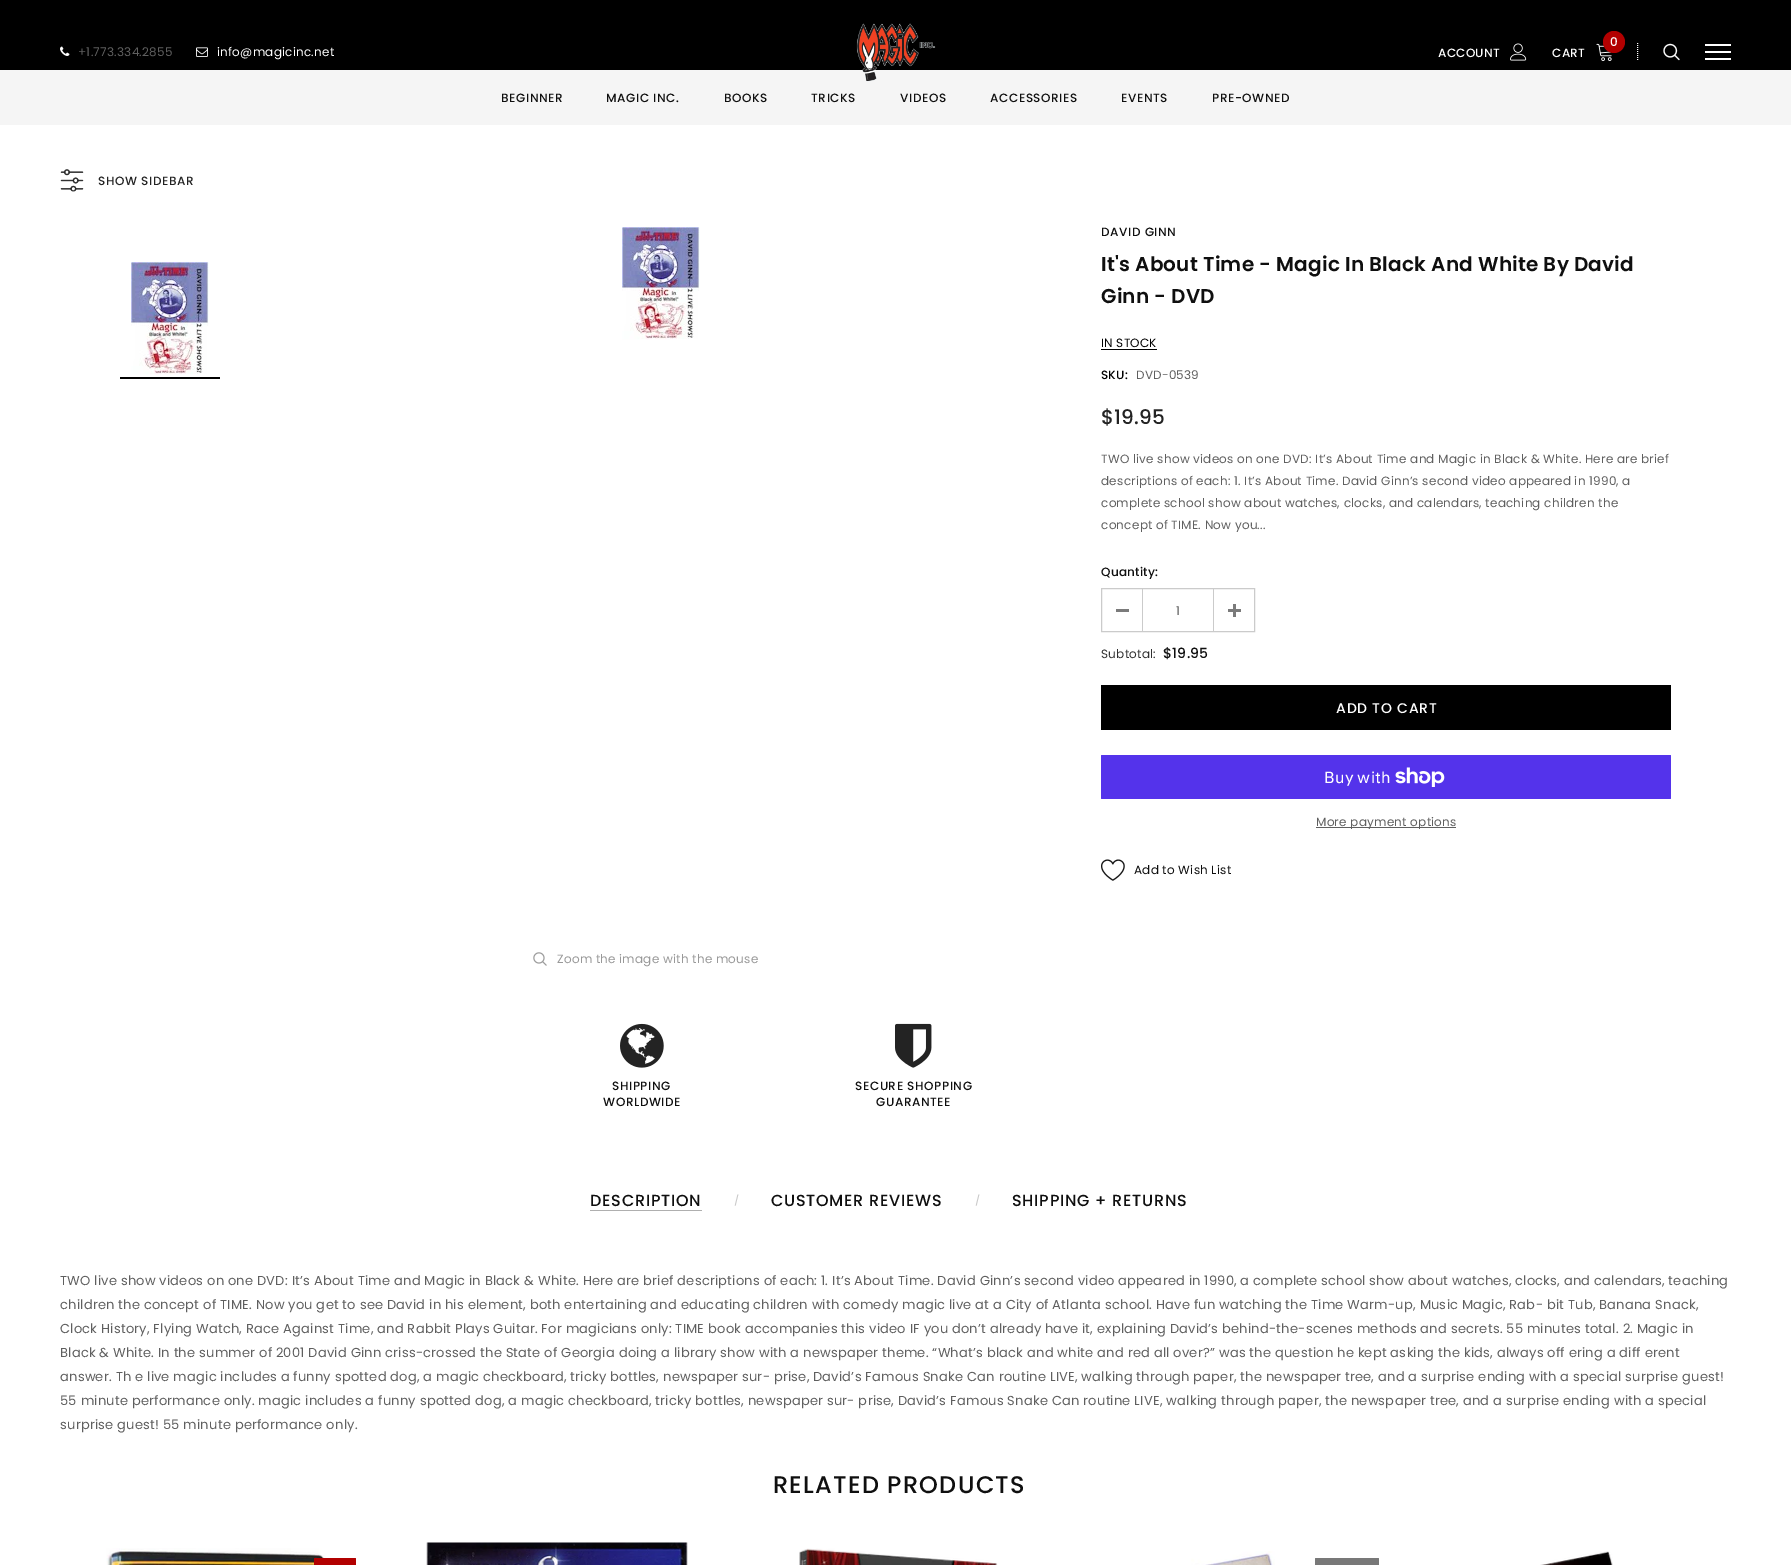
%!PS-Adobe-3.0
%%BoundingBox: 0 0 1791 1565
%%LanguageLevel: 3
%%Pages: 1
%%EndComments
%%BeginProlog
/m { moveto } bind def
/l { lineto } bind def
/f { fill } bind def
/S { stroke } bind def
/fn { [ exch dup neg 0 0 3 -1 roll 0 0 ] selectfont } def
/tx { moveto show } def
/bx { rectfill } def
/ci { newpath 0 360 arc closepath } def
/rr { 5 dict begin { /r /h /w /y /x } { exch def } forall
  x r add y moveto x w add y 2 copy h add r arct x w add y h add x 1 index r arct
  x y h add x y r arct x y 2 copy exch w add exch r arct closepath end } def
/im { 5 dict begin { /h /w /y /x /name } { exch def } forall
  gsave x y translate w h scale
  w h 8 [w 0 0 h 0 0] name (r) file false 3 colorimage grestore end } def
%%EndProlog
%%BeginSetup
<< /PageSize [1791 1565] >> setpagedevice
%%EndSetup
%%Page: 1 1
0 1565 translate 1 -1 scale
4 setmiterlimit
1 setgray
0 0 1791 1565 bx
0 setgray
0 0 1791 70 bx
(image0.raw) 60 46 10 10 im
/Poppins-Regular 12 fn
0.373 setgray
78 56 m 0.24 0 (+1.773.334.2855) ashow
(image1.raw) 196 47 12 10 im
1 setgray
217 56 m 0.24 0 (info@magicinc.net) ashow
0.961 setgray
0 70 1791 55 bx
(image2.raw) 856 23 80 59 im
/Poppins-Medium 12 fn
1 setgray
1438 57 m 0.24 0 (ACCOUNT) ashow
(image3.raw) 1510 43 17 18 im
(image4.raw) 1596 43 16 18 im
0.698 0 0 setrgbcolor
1614 42 11 ci f
1 setgray
1610 46 m 0.24 0 (0) ashow
1552 57 m 0.24 0 (CART) ashow
[1 1] 0 setdash
1637.5 43 m 1637.5 61 l S
(image5.raw) 1663 43 17 18 im
1705 51 26 2 bx
1705 44 26 2 bx
1705 58 26 2 bx
0.059 setgray
501 102 m 0.6 0 (BEGINNER) ashow
606 102 m 0.6 0 (MAGIC INC.) ashow
724 102 m 0.6 0 (BOOKS) ashow
811 102 m 0.6 0 (TRICKS) ashow
900 102 m 0.6 0 (VIDEOS) ashow
990 102 m 0.6 0 (ACCESSORIES) ashow
1121 102 m 0.6 0 (EVENTS) ashow
1212 102 m 0.6 0 (PRE-OWNED) ashow
(image6.raw) 60 169 24 23 im
0.137 setgray
98 185 m 0.6 0 (SHOW SIDEBAR) ashow
0.059 setgray
1101 236 m 0.6 0 (DAVID GINN) ashow
/Poppins-SemiBold 20 fn
1101 271 m 0.24 0 (It's About Time - Magic In Black And White By David) ashow
1101 303 m 0.24 0 (Ginn - DVD) ashow
/Poppins-Regular 12 fn
0 setgray
1101 347 m 0.24 0 (IN STOCK) ashow
1101 349 56 1 0.5 rr f
/Poppins-Medium 12 fn
1101 379 m 0.24 0 (SKU:) ashow
/Poppins-Regular 12 fn
0.373 setgray
1136 379 m 0.24 0 (DVD-0539) ashow
/Poppins-Medium 20 fn
0.137 setgray
1101 424 m 0.24 0 ($19.95) ashow
/Poppins-Regular 12 fn
0.373 setgray
1101 463 m 0.24 0 (TWO live show videos on one DVD: It’s About Time and Magic in Black & White. Here are brief) ashow
1101 485 m 0.24 0 (descriptions of each: 1. It’s About Time. David Ginn’s second video appeared in 1990, a) ashow
1101 507 m 0.24 0 (complete school show about watches, clocks, and calendars, teaching children the) ashow
1101 529 m 0.24 0 (concept of TIME. Now you...) ashow
/Poppins-Medium 12 fn
0.059 setgray
1101 576 m 0.24 0 (Quantity:) ashow
0.796 setgray
[] 0 setdash
1101.5 588.5 153 43 rectstroke
1142 589 1 42 bx
0.482 setgray
1116 609 13 3 bx
/Poppins-Regular 12 fn
0.373 setgray
(1) 1176 615 tx
0.796 setgray
1213 589 1 42 bx
0.482 setgray
1228 609 13 3 bx
1233 604 3 13 bx
0.192 setgray
1101 658 m 0.24 0 (Subtotal:) ashow
/Poppins-Medium 14 fn
0.059 setgray
1163 658 m 0.24 0 ($19.95) ashow
0 setgray
1101 685 570 45 bx
1 setgray
1336 713 m 0.75 0 (ADD TO CART) ashow
0.329 0.2 0.922 setrgbcolor
1101 755 570 44 1 rr f
/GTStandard-Regular 16 fn
1 setgray
1324 783 m 0.24 0 (Buy with) ashow
(image7.raw) 1395 767 50 20 im
0.373 setgray
1316 827 140 1 bx
/Poppins-Regular 12 fn
1316 826 m 0.24 0 (More payment options) ashow
(image8.raw) 1101 859 24 22 im
0.059 setgray
1134 874 m 0.24 0 (Add to Wish List) ashow
0 setgray
120 377 100 2 bx
(image9.raw) 131 262 78 113 im
(image9.raw) 622 227 78 113 im
(image10.raw) 533 952 14 14 im
0.6 setgray
557 963 m 0.24 0 (Zoom the image with the mouse) ashow
(image11.raw) 620 1023 44 45 im
/Poppins-Medium 12 fn
0.059 setgray
612 1090 m 0.6 0 (SHIPPING) ashow
603 1106 m 0.6 0 (WORLDWIDE) ashow
(image12.raw) 895 1023 37 45 im
855 1090 m 0.6 0 (SECURE SHOPPING) ashow
876 1106 m 0.6 0 (GUARANTEE) ashow
/Poppins-Medium 16 fn
590 1206 m 0.75 0 (DESCRIPTION) ashow
0.686 setgray
590 1210 112 1 bx
/Poppins-Medium 10 fn
0.796 setgray
734 1204 m 0.75 0 (/) ashow
/Poppins-Medium 16 fn
0.059 setgray
771 1206 m 0.75 0 (CUSTOMER REVIEWS) ashow
/Poppins-Medium 10 fn
0.796 setgray
975 1204 m 0.75 0 (/) ashow
/Poppins-Medium 16 fn
0.059 setgray
1012 1206 m 0.75 0 (SHIPPING + RETURNS) ashow
/Poppins-Regular 13 fn
0.373 setgray
60 1285 m 0.24 0 (TWO live show videos on one DVD: It’s About Time and Magic in Black & White. Here are brief descriptions of each: 1. It’s About Time. David Ginn’s second video appeared in 1990, a complete school show about watches, clocks, and calendars, teaching) ashow
60 1309 m 0.24 0 (children the concept of TIME. Now you get to see David in his element, both entertaining and educating children with comedy magic live at a City of Atlanta school. Have fun watching the Time Warm-up, Music Magic, Rab- bit Tub, Banana Snack,) ashow
60 1333 m 0.24 0 (Clock History, Flying Watch, Race Against Time, and Rabbit Plays Guitar. For magicians only: TIME book accompanies this video IF you don’t already have it, explaining David’s behind-the-scenes methods and secrets. 55 minutes total. 2. Magic in) ashow
60 1357 m 0.24 0 (Black & White. In the summer of 2001 David Ginn criss-crossed the State of Georgia doing a library show with a newspaper theme. “What’s black and white and red all over?” was the question he kept asking the kids, always off ering a diff erent) ashow
60 1381 m 0.24 0 (answer. Th e live magic includes a funny spotted dog, a magic checkboard, tricky bottles, newspaper sur- prise, David’s Famous Snake Can routine LIVE, walking through paper, the newspaper tree, and a surprise ending with a special surprise guest!) ashow
60 1405 m 0.24 0 (55 minute performance only. magic includes a funny spotted dog, a magic checkboard, tricky bottles, newspaper sur- prise, David’s Famous Snake Can routine LIVE, walking through paper, the newspaper tree, and a surprise ending with a special) ashow
60 1429 m 0.24 0 (surprise guest! 55 minute performance only.) ashow
/Poppins-Medium 24 fn
0.059 setgray
773 1493 m 1.25 0 (RELATED PRODUCTS) ashow
(image13.raw) 106 1548 220 17 im
0.698 0 0 setrgbcolor
314 1558 42 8 1 rr f
(image14.raw) 426 1542 262 23 im
(image15.raw) 799 1548 199 17 im
(image16.raw) 1191 1551 84 14 im
0.471 setgray
1315 1558 64 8 1 rr f
(image17.raw) 1540 1551 73 14 im
showpage
%%EOF
